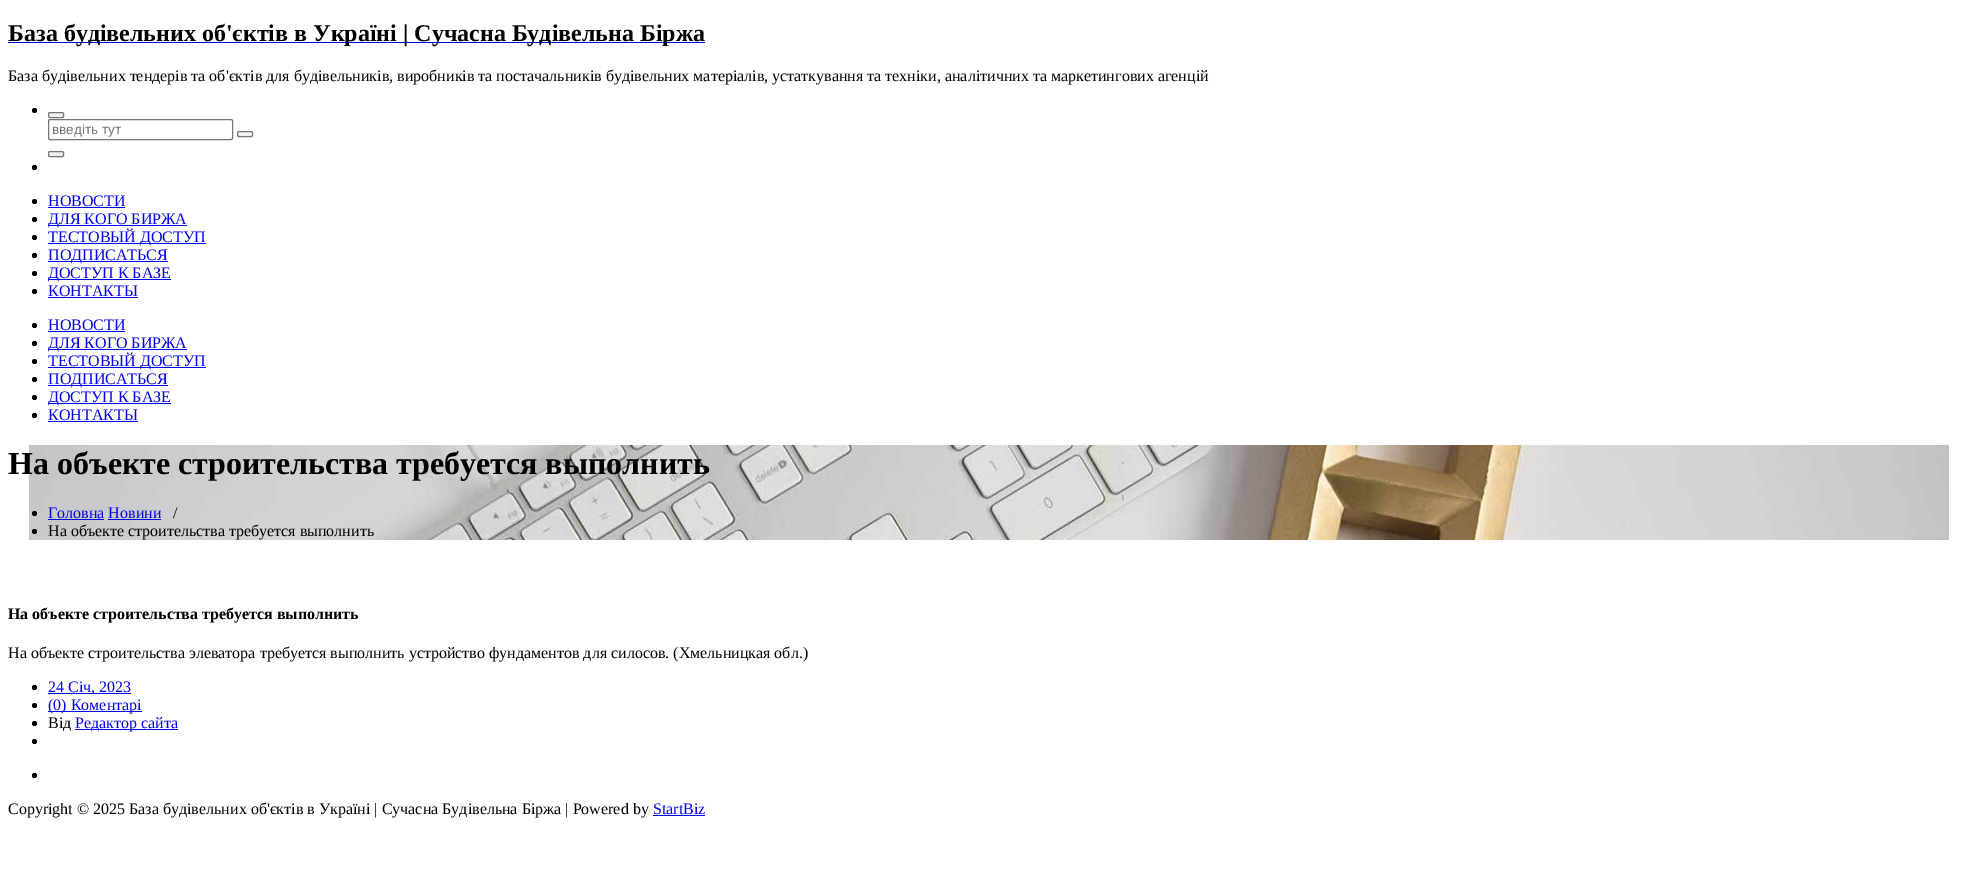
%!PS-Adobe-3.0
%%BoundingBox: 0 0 1978 888
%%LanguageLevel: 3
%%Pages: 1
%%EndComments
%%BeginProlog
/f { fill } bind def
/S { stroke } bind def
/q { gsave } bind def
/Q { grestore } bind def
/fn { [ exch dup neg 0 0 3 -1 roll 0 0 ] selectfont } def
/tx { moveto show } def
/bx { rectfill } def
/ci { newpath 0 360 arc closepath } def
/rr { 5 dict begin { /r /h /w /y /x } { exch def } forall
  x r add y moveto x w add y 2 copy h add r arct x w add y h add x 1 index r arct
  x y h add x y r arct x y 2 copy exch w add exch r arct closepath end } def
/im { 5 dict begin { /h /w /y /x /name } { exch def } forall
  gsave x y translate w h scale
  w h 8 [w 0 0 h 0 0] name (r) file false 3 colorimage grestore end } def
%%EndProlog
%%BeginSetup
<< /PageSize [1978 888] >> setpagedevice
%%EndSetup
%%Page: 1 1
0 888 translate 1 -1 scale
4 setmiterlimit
1 setgray
0 0 1978 888 bx
0 0 0.933 setrgbcolor
8 42 697 1 bx
/LiberationSerif-Bold 24 fn
0 setgray
(База будівельних об'єктів в Україні | Сучасна Будівельна Біржа) 8 41 tx
/LiberationSerif-Regular 16 fn
(База будівельних тендерів та об'єктів для будівельників, виробників та постачальників будівельних матеріалів, устаткування та техніки, аналітичних та маркетингових агенцій) 8 81 tx
34.5 110.5 2.5 ci f
0.937 setgray
48.5 112.5 15 5 1.5 rr q f Q
0.463 setgray
S
48.5 119.5 184 20 1.5 rr S
/LiberationSans-Regular 13.5 fn
0.459 setgray
(введіть тут) 52 134 tx
0.937 setgray
237.5 131.5 15 5 1.5 rr q f Q
0.463 setgray
S
0.937 setgray
48.5 151.5 15 5 1.5 rr q f Q
0.463 setgray
S
0 setgray
34.5 167.5 2.5 ci f
34.5 201.5 2.5 ci f
/LiberationSerif-Regular 16 fn
0 0 0.933 setrgbcolor
(НОВОСТИ) 48 206 tx
48 207 77 1 bx
0 setgray
34.5 219.5 2.5 ci f
0 0 0.933 setrgbcolor
48 225 139 1 bx
(ДЛЯ КОГО БИРЖА) 48 224 tx
0 setgray
34.5 237.5 2.5 ci f
0 0 0.933 setrgbcolor
48 243 158 1 bx
(ТЕСТОВЫЙ ДОСТУП) 48 242 tx
0 setgray
34.5 255.5 2.5 ci f
0 0 0.933 setrgbcolor
48 261 120 1 bx
(ПОДПИСАТЬСЯ) 48 260 tx
0 setgray
34.5 273.5 2.5 ci f
0 0 0.933 setrgbcolor
48 279 123 1 bx
(ДОСТУП К БАЗЕ) 48 278 tx
0 setgray
34.5 291.5 2.5 ci f
0 0 0.933 setrgbcolor
(КОНТАКТЫ) 48 296 tx
48 297 90 1 bx
0 setgray
34.5 325.5 2.5 ci f
0 0 0.933 setrgbcolor
(НОВОСТИ) 48 330 tx
48 331 77 1 bx
0 setgray
34.5 343.5 2.5 ci f
0 0 0.933 setrgbcolor
48 349 139 1 bx
(ДЛЯ КОГО БИРЖА) 48 348 tx
0 setgray
34.5 361.5 2.5 ci f
0 0 0.933 setrgbcolor
48 367 158 1 bx
(ТЕСТОВЫЙ ДОСТУП) 48 366 tx
0 setgray
34.5 379.5 2.5 ci f
0 0 0.933 setrgbcolor
48 385 120 1 bx
(ПОДПИСАТЬСЯ) 48 384 tx
0 setgray
34.5 397.5 2.5 ci f
0 0 0.933 setrgbcolor
48 403 123 1 bx
(ДОСТУП К БАЗЕ) 48 402 tx
0 setgray
34.5 415.5 2.5 ci f
0 0 0.933 setrgbcolor
(КОНТАКТЫ) 48 420 tx
48 421 90 1 bx
(image0.raw) 29 445 1920 95 im
/LiberationSerif-Bold 32 fn
0 setgray
(На объекте строительства требуется выполнить) 8 474 tx
34.5 513.5 2.5 ci f
/LiberationSerif-Regular 16 fn
0 0 0.933 setrgbcolor
(Головна Новини) 48 518 tx
48 519 56 1 bx
0 setgray
(/) 173 518 tx
0 0 0.933 setrgbcolor
108 519 53 1 bx
0 setgray
34.5 531.5 2.5 ci f
(На объекте строительства требуется выполнить) 48 536 tx
/LiberationSerif-Bold 16 fn
(На объекте строительства требуется выполнить) 8 619 tx
/LiberationSerif-Regular 16 fn
(На объекте строительства элеватора требуется выполнить устройство фундаментов для силосов. \(Хмельницкая обл.\)) 8 658 tx
34.5 687.5 2.5 ci f
0 0 0.933 setrgbcolor
48 693 83 1 bx
(24 Січ, 2023) 48 692 tx
0 setgray
34.5 705.5 2.5 ci f
0 0 0.933 setrgbcolor
48 711 94 1 bx
(\(0\) Коментарі) 48 710 tx
0 setgray
34.5 723.5 2.5 ci f
(Від) 48 728 tx
0 0 0.933 setrgbcolor
75 729 103 1 bx
(Редактор сайта) 75 728 tx
0 setgray
34.5 741.5 2.5 ci f
34.5 775.5 2.5 ci f
(Copyright © 2025 База будівельних об'єктів в Україні | Сучасна Будівельна Біржа | Powered by) 8 814 tx
0 0 0.933 setrgbcolor
(StartBiz) 653 814 tx
653 815 52 1 bx
showpage
%%EOF
